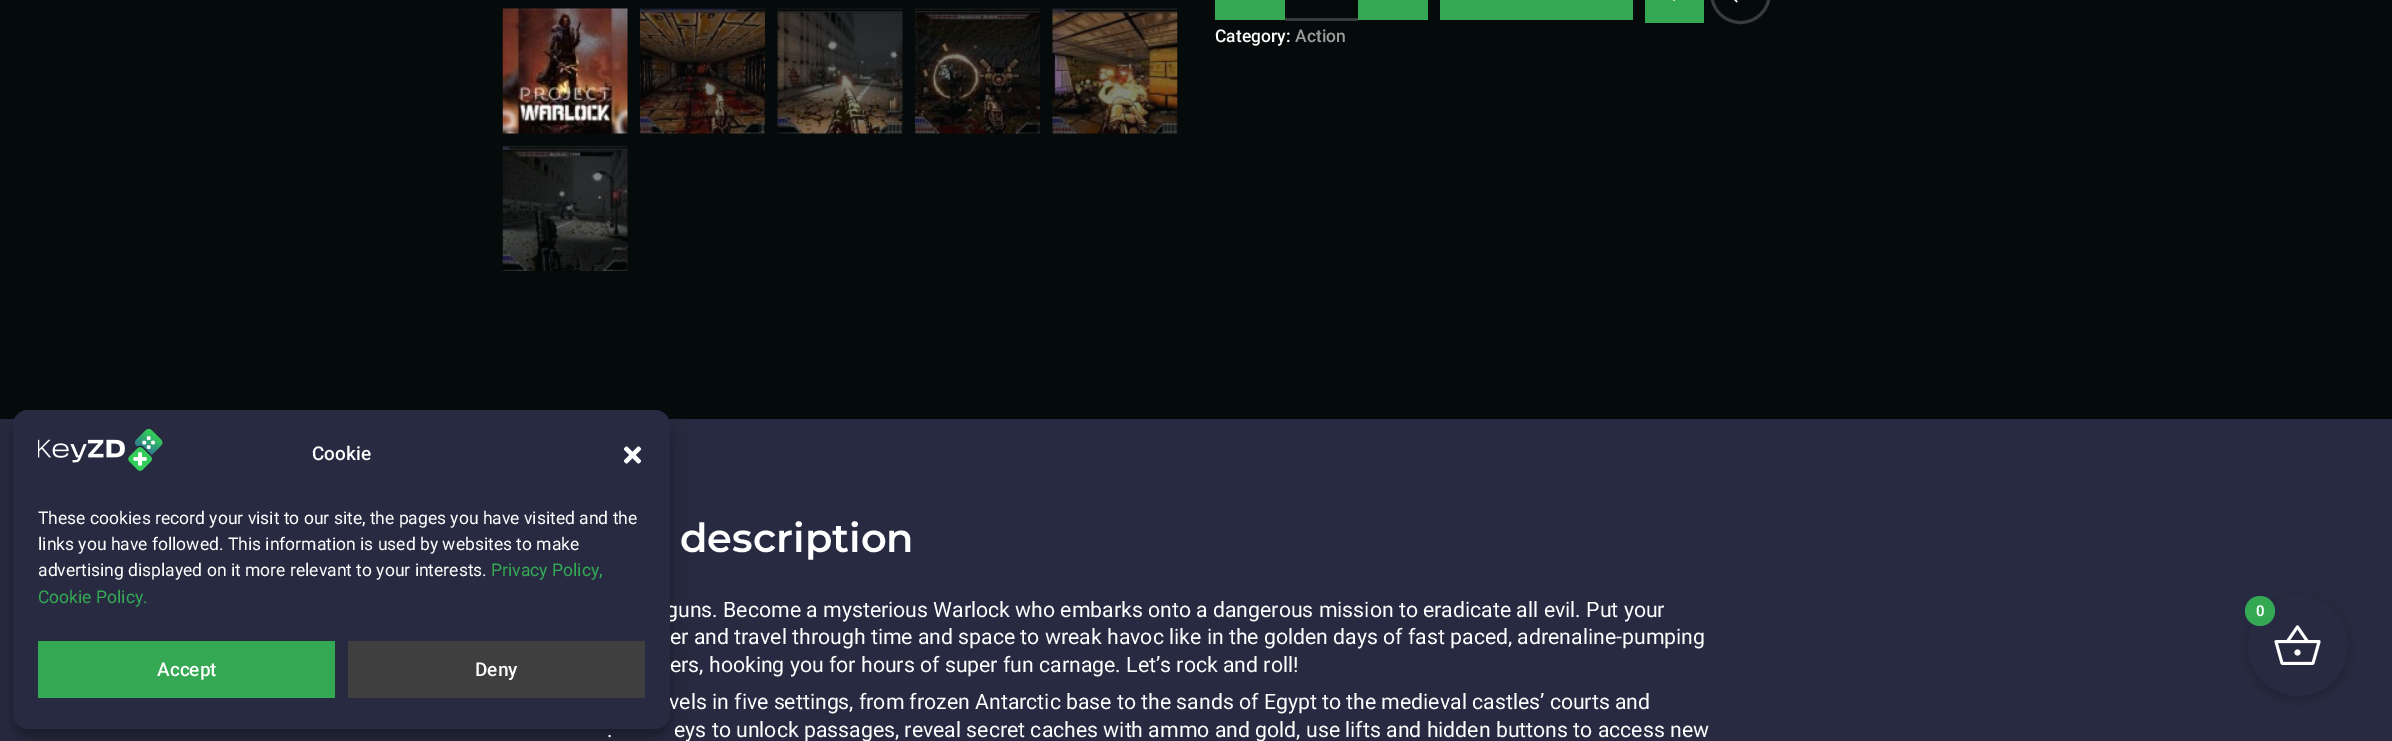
%!PS-Adobe-3.0
%%BoundingBox: 0 0 2392 741
%%LanguageLevel: 3
%%Pages: 1
%%EndComments
%%BeginProlog
/f { fill } bind def
/S { stroke } bind def
/w { setlinewidth } bind def
/fn { [ exch dup neg 0 0 3 -1 roll 0 0 ] selectfont } def
/tx { moveto show } def
/bx { rectfill } def
/al { dup .setfillconstantalpha .setstrokeconstantalpha } def
/ci { newpath 0 360 arc closepath } def
/rr { 5 dict begin { /r /h /w /y /x } { exch def } forall
  x r add y moveto x w add y 2 copy h add r arct x w add y h add x 1 index r arct
  x y h add x y r arct x y 2 copy exch w add exch r arct closepath end } def
/sh { 12 dict begin { /a /b /q /h /w /y /x } { exch def } forall gsave /was 0 def
  9 -2 -9 { dup b mul 4 div /e exch def 1 sub .425 mul 2.718 exch exp 1 add a .99 .min exch div /now exch def
    1 1 now sub 1 was sub div sub al /was now def
    w h .min e 2 mul add 0 gt { x e sub y e sub w e 2 mul add h e 2 mul add
      q e add b .6 mul add w h .min 2 div e add .min 0 .max rr fill } if } for grestore end } def
/im { 5 dict begin { /h /w /y /x /name } { exch def } forall
  gsave x y translate w h scale
  w h 8 [w 0 0 h 0 0] name (r) file false 3 colorimage grestore end } def
%%EndProlog
%%BeginSetup
<< /PageSize [2392 741] /PageUsesTransparency true >> setpagedevice
%%EndSetup
%%Page: 1 1
0 .pushpdf14devicefilter
0 741 translate 1 -1 scale
4 setmiterlimit
0.02 0.039 0.043 setrgbcolor
0 0 2392 741 bx
0.153 0.165 0.255 setrgbcolor
0 419 2392 322 bx
0 setgray
13 418 657 318 15 4 0.23 sh
13 423 657 318 15 12.5 0.19 sh
/Roboto-Regular 21.25 fn
1 setgray
(guns. Become a mysterious Warlock who embarks onto a dangerous mission to eradicate all evil. Put your) 666 617 tx
(vels in five settings, from frozen Antarctic base to the sands of Egypt to the medieval castles’ courts and) 669 709 tx
0.153 0.165 0.255 setrgbcolor
13 410 657 319 15 rr f
(image0.raw) 38 429 125 42 im
/Roboto-Medium 19 fn
1 setgray
(Cookie) 312 460 tx
(image1.raw) 623 446 19 18 im
/Roboto-Regular 17.5 fn
(These cookies record your visit to our site, the pages you have visited and the) 38 524 tx
(links you have followed. This information is used by websites to make) 38 550 tx
(advertising displayed on it more relevant to your interests.) 38 576 tx
0.204 0.659 0.325 setrgbcolor
(Privacy Policy,) 491 576 tx
(Cookie Policy.) 38 603 tx
38 641 297 57 bx
/Roboto-Medium 19 fn
1 setgray
(Accept) 157 676 tx
0.247 setgray
348 641 297 57 bx
1 setgray
(Deny) 475 676 tx
(image2.raw) 502 8 126 126 im
(image3.raw) 640 8 125 126 im
(image4.raw) 777 8 126 126 im
(image5.raw) 915 8 125 126 im
(image6.raw) 1052 8 126 126 im
(image7.raw) 502 146 126 125 im
0.02 0.039 0.055 setrgbcolor
1215 24 675 1 bx
0.204 0.659 0.325 setrgbcolor
1215 0 70 20 bx
0.216 0.231 0.235 setrgbcolor
1285 18 73 3 bx
0.204 0.659 0.325 setrgbcolor
1358 0 70 20 bx
1440 0 193 20 bx
1645 0 59 23 bx
(image8.raw) 1673 0 3 1 im
0.216 0.231 0.235 setrgbcolor
3 w
1711.5 -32.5 58 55 29 rr S
(image9.raw) 1734 0 4 3 im
/Roboto-Medium 17.5 fn
1 setgray
(Category:) 1215 42 tx
0.608 0.616 0.616 setrgbcolor
(Action) 1295 42 tx
/Montserrat-SemiBold 40 fn
1 setgray
(description) 680 552 tx
/Roboto-Regular 21.25 fn
(er and travel through time and space to wreak havoc like in the golden days of fast paced, adrenaline-pumping) 670 644 tx
(ers, hooking you for hours of super fun carnage. Let’s rock and roll!) 670 672 tx
(.) 607 737 tx
(eys to unlock passages, reveal secret caches with ammo and gold, use lifts and hidden buttons to access new) 674 737 tx
0 setgray
2248 599 100 100 50 5 0.25 sh
0.153 0.165 0.255 setrgbcolor
2298 646 50 ci f
(image10.raw) 2274 625 47 40 im
0.204 0.659 0.325 setrgbcolor
2260 611 15 ci f
/Roboto-SemiBold 15 fn
1 setgray
(0) 2256 616 tx
.poppdf14devicefilter showpage
%%EOF
